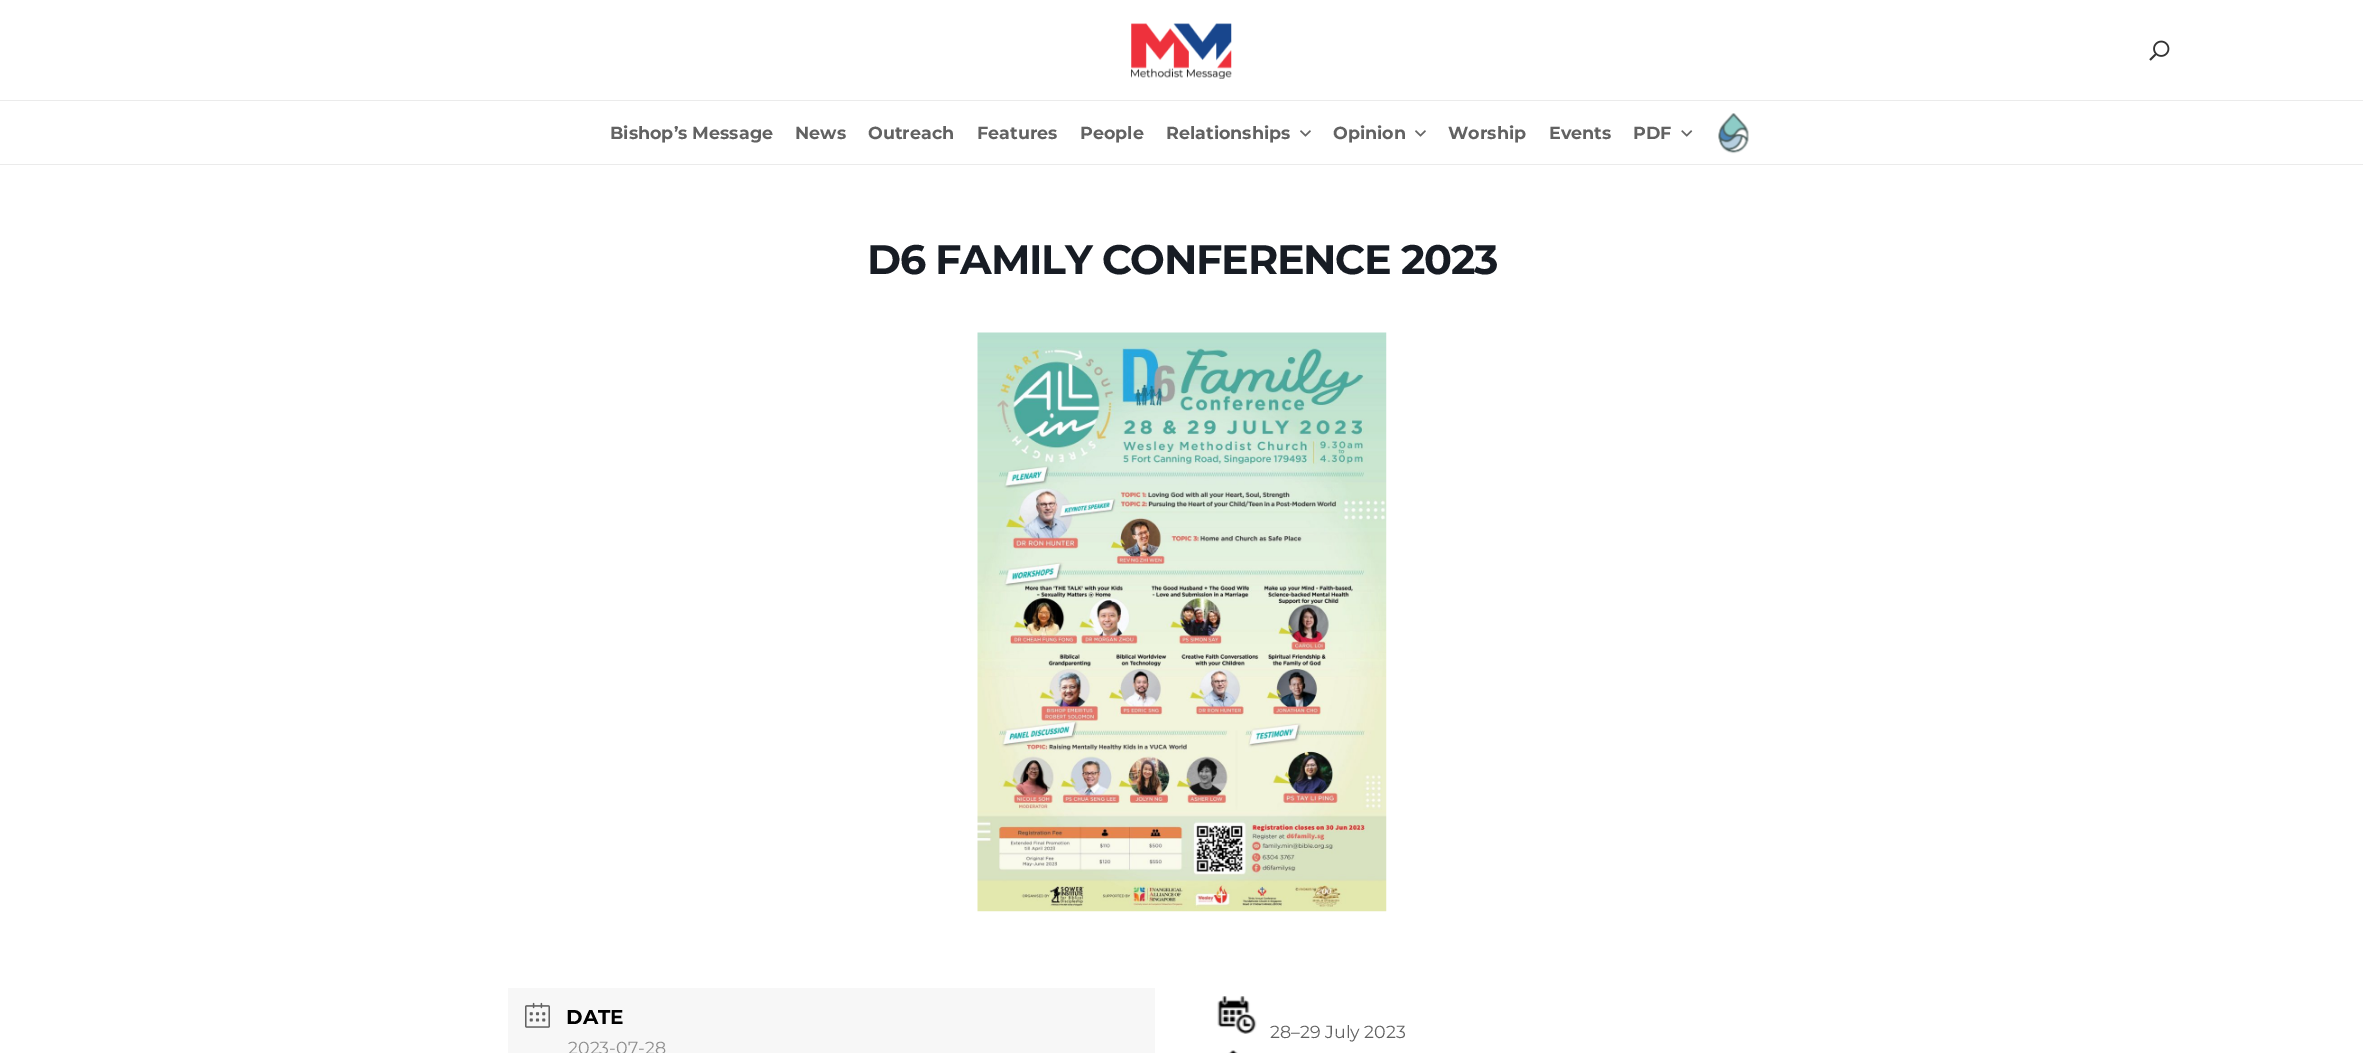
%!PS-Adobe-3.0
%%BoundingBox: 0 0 2363 1053
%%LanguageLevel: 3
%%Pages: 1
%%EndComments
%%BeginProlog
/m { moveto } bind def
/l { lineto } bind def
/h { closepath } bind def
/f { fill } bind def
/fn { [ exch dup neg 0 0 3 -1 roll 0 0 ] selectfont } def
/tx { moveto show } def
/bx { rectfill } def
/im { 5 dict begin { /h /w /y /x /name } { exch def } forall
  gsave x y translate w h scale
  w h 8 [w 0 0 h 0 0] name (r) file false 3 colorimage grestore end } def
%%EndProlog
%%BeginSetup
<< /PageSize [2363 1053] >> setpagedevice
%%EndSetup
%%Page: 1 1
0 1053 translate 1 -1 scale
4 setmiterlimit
1 setgray
0 0 2363 1053 bx
0.922 setgray
0 100 2363 1 bx
(image0.raw) 1131 23 101 56 im
(image1.raw) 2149 40 21 21 im
0 164 m 0 165 l 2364 165 l 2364 103 l 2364 164 l h f
/Montserrat-Bold 17.5 fn
0.384 setgray
(Bishop’s Message) 610 139 tx
(News) 795 139 tx
(Outreach) 868 139 tx
(Features) 977 139 tx
(People) 1080 139 tx
(Relationships) 1166 139 tx
(image2.raw) 1300 130 11 7 im
(Opinion) 1333 139 tx
(image2.raw) 1415 130 11 7 im
(Worship) 1448 139 tx
(Events) 1549 139 tx
(PDF) 1633 139 tx
(image3.raw) 1681 130 12 7 im
(image4.raw) 1718 113 31 41 im
/Montserrat-Bold 41.25 fn
0.09 0.11 0.141 setrgbcolor
867 274 m -1.25 0 (D6 FAMILY CONFERENCE 2023) ashow
(image5.raw) 977 332 410 580 im
0.969 setgray
508 988 647 65 bx
(image6.raw) 525 1002 25 26 im
/Montserrat-Bold 20 fn
0 setgray
(DATE) 566 1024 tx
/Montserrat-Regular 17.5 fn
0.553 setgray
(2023-07-28) 568 1054 tx
(image7.raw) 1217 996 40 38 im
0.384 setgray
(28–29 July 2023) 1270 1038 tx
(image8.raw) 1228 1050 10 3 im
showpage
%%EOF
